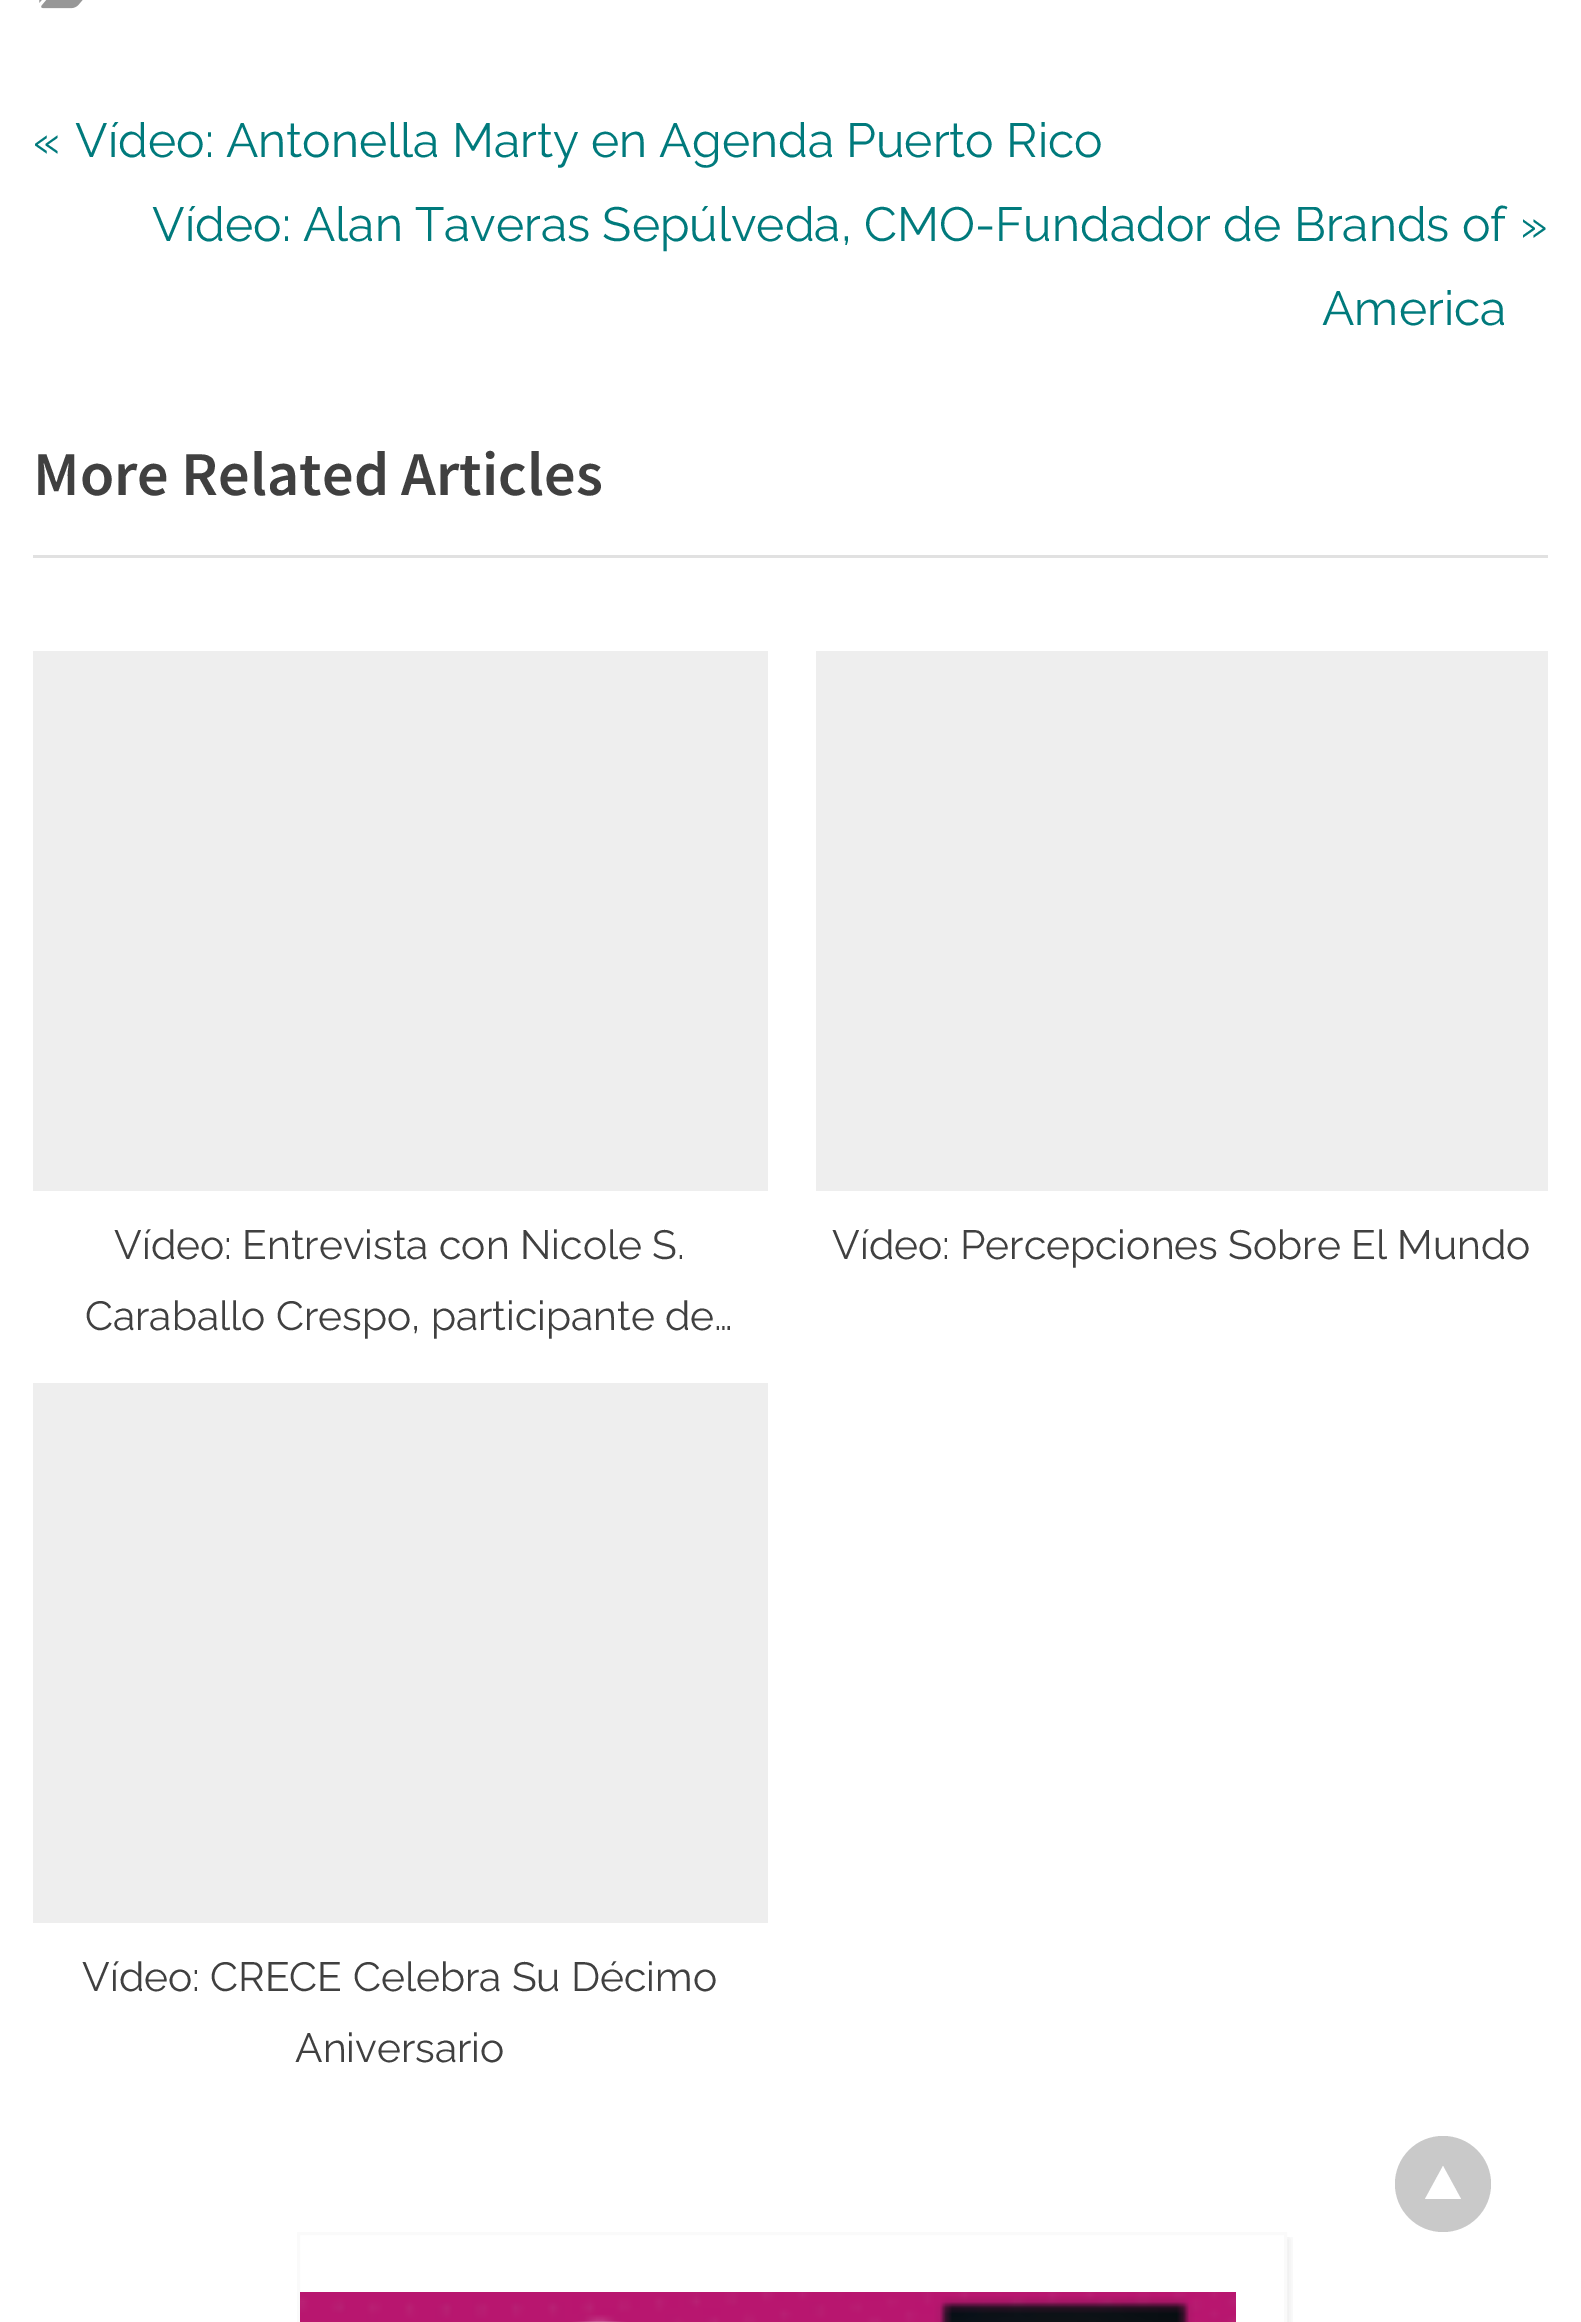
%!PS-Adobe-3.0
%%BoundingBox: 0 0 1581 2322
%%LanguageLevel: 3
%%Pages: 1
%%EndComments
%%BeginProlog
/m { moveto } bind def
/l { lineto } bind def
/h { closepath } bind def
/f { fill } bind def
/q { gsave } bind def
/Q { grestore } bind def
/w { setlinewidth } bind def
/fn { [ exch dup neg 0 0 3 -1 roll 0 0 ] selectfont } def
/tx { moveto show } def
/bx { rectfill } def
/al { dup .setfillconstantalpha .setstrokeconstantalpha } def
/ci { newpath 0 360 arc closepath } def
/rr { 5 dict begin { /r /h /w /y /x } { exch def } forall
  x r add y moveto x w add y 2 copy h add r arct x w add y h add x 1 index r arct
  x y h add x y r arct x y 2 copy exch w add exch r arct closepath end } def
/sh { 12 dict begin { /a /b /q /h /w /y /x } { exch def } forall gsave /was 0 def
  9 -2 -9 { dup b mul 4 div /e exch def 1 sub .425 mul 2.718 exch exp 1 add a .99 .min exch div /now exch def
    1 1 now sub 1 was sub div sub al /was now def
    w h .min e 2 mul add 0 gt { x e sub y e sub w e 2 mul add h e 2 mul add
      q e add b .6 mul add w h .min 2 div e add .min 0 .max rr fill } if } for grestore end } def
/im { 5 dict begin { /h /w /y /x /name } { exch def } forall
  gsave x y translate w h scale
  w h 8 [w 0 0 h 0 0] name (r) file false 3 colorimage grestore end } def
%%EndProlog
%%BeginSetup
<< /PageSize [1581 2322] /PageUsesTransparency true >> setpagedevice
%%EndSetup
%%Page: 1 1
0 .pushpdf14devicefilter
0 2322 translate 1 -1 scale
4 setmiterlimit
1 setgray
0 0 1581 2322 bx
(image0.raw) 39 0 44 9 im
/Raleway-Regular 48 fn
0 0.478 0.486 setrgbcolor
(«) 33 157 tx
(Vídeo: Antonella Marty en Agenda Puerto Rico) 75 157 tx
(Vídeo: Alan Taveras Sepúlveda, CMO-Fundador de Brands of) 152 241 tx
(America) 1322 325 tx
(») 1520 241 tx
0.882 setgray
33 555 1515 3 bx
/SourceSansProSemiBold-SemiBold 62.5 fn
0.251 setgray
(More Related Articles) 33 495 tx
0.933 setgray
33 651 735 540 bx
/Raleway-Regular 40.75 fn
0.251 setgray
(Vídeo: Entrevista con Nicole S.) 114 1259 tx
(Caraballo Crespo, participante de…) 85 1330 tx
0.933 setgray
816 651 732 540 bx
0.251 setgray
(Vídeo: Percepciones Sobre El Mundo) 832 1259 tx
0.933 setgray
33 1383 735 540 bx
0.251 setgray
(Vídeo: CRECE Celebra Su Décimo) 82 1991 tx
(Aniversario) 295 2062 tx
q
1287 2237 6 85 rectclip
0 setgray
300 2238 990 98 0 4.5 0.07 sh
Q
0.98 setgray
3 w
298.5 2233.5 987 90 rectstroke
(image1.raw) 300 2292 936 30 im
0.788 setgray
1443 2184 48 ci f
1 setgray
1461 2199 m 1425 2199 l 1443 2166 l h f
.poppdf14devicefilter showpage
%%EOF
